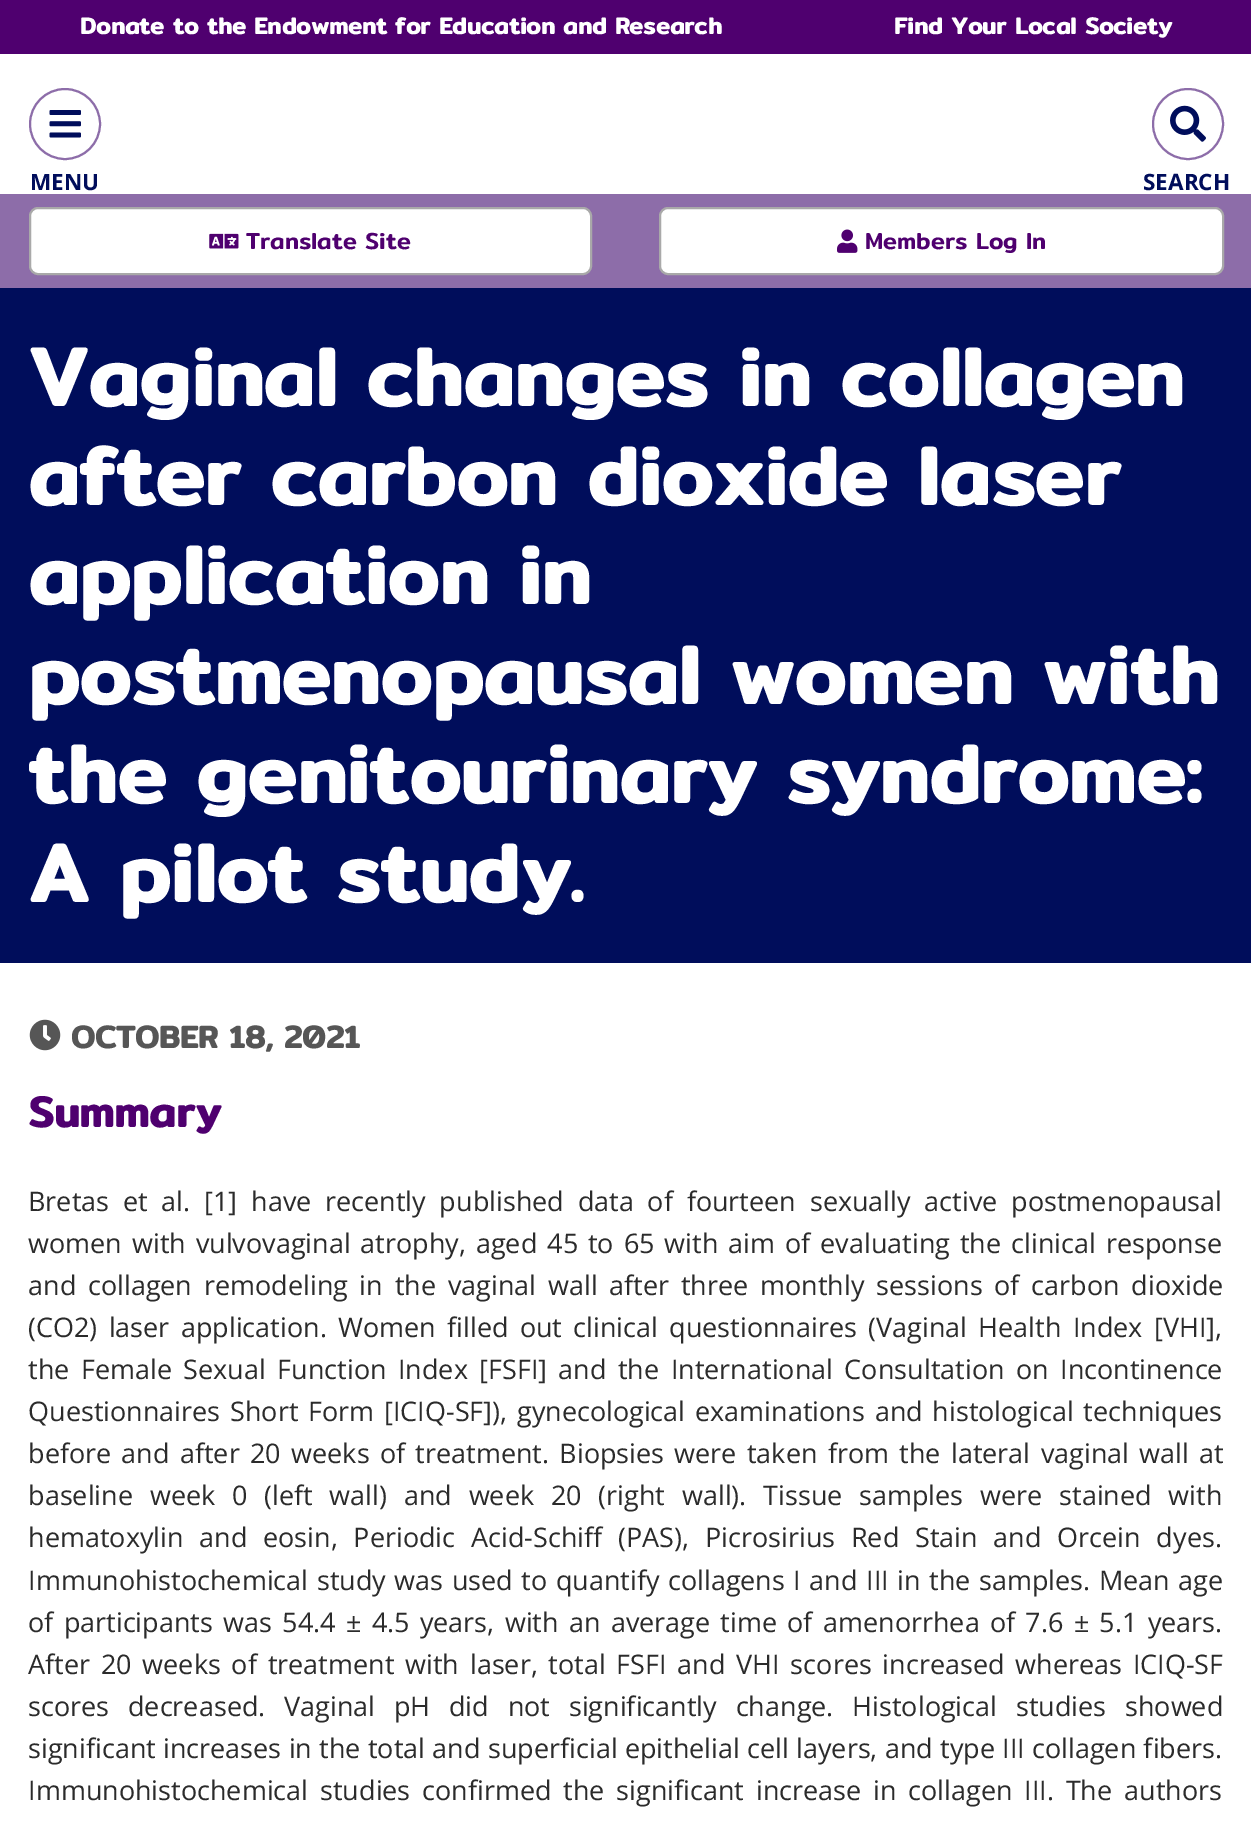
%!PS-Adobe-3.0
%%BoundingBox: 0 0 1251 1827
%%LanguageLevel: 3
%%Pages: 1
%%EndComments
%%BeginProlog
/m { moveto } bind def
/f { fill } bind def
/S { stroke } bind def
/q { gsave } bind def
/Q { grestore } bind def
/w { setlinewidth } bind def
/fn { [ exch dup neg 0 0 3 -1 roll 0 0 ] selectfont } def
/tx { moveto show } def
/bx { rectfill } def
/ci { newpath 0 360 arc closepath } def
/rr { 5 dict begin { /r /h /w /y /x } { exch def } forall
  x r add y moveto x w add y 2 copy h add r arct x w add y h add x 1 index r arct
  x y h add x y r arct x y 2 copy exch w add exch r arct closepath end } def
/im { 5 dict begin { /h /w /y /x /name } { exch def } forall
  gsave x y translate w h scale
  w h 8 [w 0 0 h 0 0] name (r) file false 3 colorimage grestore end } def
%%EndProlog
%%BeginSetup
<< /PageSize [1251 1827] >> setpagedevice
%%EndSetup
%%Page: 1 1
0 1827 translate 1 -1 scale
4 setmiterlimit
1 setgray
0 0 1251 1827 bx
0.31 0 0.435 setrgbcolor
0 0 1251 54 bx
/Mitr-Bold 23.4 fn
1 setgray
(Donate to the Endowment for Education and Research) 80 34 tx
(Find Your Local Society) 894 34 tx
0.553 0.427 0.663 setrgbcolor
2 w
65 124 35 ci S
(image0.raw) 49 110 32 28 im
/OpenSans-Bold 22.5 fn
0 0.051 0.357 setrgbcolor
(MENU) 30 190 tx
0.553 0.427 0.663 setrgbcolor
1188 124 35 ci S
(image1.raw) 1170 105 36 37 im
0 0.051 0.357 setrgbcolor
(SEARCH) 1143 190 tx
0.553 0.427 0.663 setrgbcolor
0 194 1251 94 bx
1 setgray
30 208 561 66 8 rr q f Q
0.663 setgray
S
(image2.raw) 209 233 30 16 im
/Mitr-Medium 23.4 fn
0.31 0 0.435 setrgbcolor
(Translate Site) 246 249 tx
1 setgray
660 208 563 66 8 rr q f Q
0.663 setgray
S
(image3.raw) 837 229 21 24 im
0.31 0 0.435 setrgbcolor
(Members Log In) 865 249 tx
0 0.051 0.357 setrgbcolor
0 288 1251 675 bx
/Mitr-Bold 82.75 fn
1 setgray
(Vaginal changes in collagen) 28 406 tx
(after carbon dioxide laser) 28 505 tx
(application in) 28 604 tx
(postmenopausal women with) 28 704 tx
(the genitourinary syndrome:) 28 803 tx
(A pilot study.) 28 902 tx
(image4.raw) 29 1019 32 32 im
/Mitr-Bold 31.5 fn
0.337 setgray
(OCTOBER 18, 2021) 71 1048 tx
/Mitr-Bold 43 fn
0.31 0 0.435 setrgbcolor
(Summary) 28 1127 tx
/OpenSans-Regular 27 fn
0.169 setgray
28 1211 m 6.75 0 32 (Bretas et al. [1] have recently published data of fourteen sexually active postmenopausal) widthshow
28 1253 m 2.9 0 32 (women with vulvovaginal atrophy, aged 45 to 65 with aim of evaluating the clinical response) widthshow
28 1295 m 4.75 0 32 (and collagen remodeling in the vaginal wall after three monthly sessions of carbon dioxide) widthshow
28 1337 m 4.25 0 32 (\(CO2\) laser application. Women filled out clinical questionnaires \(Vaginal Health Index [VHI],) widthshow
28 1379 m 4.4 0 32 (the Female Sexual Function Index [FSFI] and the International Consultation on Incontinence) widthshow
28 1421 m 2.75 0 32 (Questionnaires Short Form [ICIQ-SF]\), gynecological examinations and histological techniques) widthshow
28 1463 m 3.25 0 32 (before and after 20 weeks of treatment. Biopsies were taken from the lateral vaginal wall at) widthshow
28 1505 m 9.75 0 32 (baseline week 0 \(left wall\) and week 20 \(right wall\). Tissue samples were stained with) widthshow
28 1547 m 8.75 0 32 (hematoxylin and eosin, Periodic Acid-Schiff \(PAS\), Picrosirius Red Stain and Orcein dyes.) widthshow
28 1590 m 1.5 0 32 (Immunohistochemical study was used to quantify collagens I and III in the samples. Mean age) widthshow
28 1632 m 3.25 0 32 (of participants was 54.4 ± 4.5 years, with an average time of amenorrhea of 7.6 ± 5.1 years.) widthshow
28 1674 m 3.75 0 32 (After 20 weeks of treatment with laser, total FSFI and VHI scores increased whereas ICIQ-SF) widthshow
28 1716 m 11.75 0 32 (scores decreased. Vaginal pH did not significantly change. Histological studies showed) widthshow
28 1758 m 0.25 0 32 (significant increases in the total and superficial epithelial cell layers, and type III collagen fibers.) widthshow
28 1800 m 4.75 0 32 (Immunohistochemical studies confirmed the significant increase in collagen III. The authors) widthshow
showpage
%%EOF
